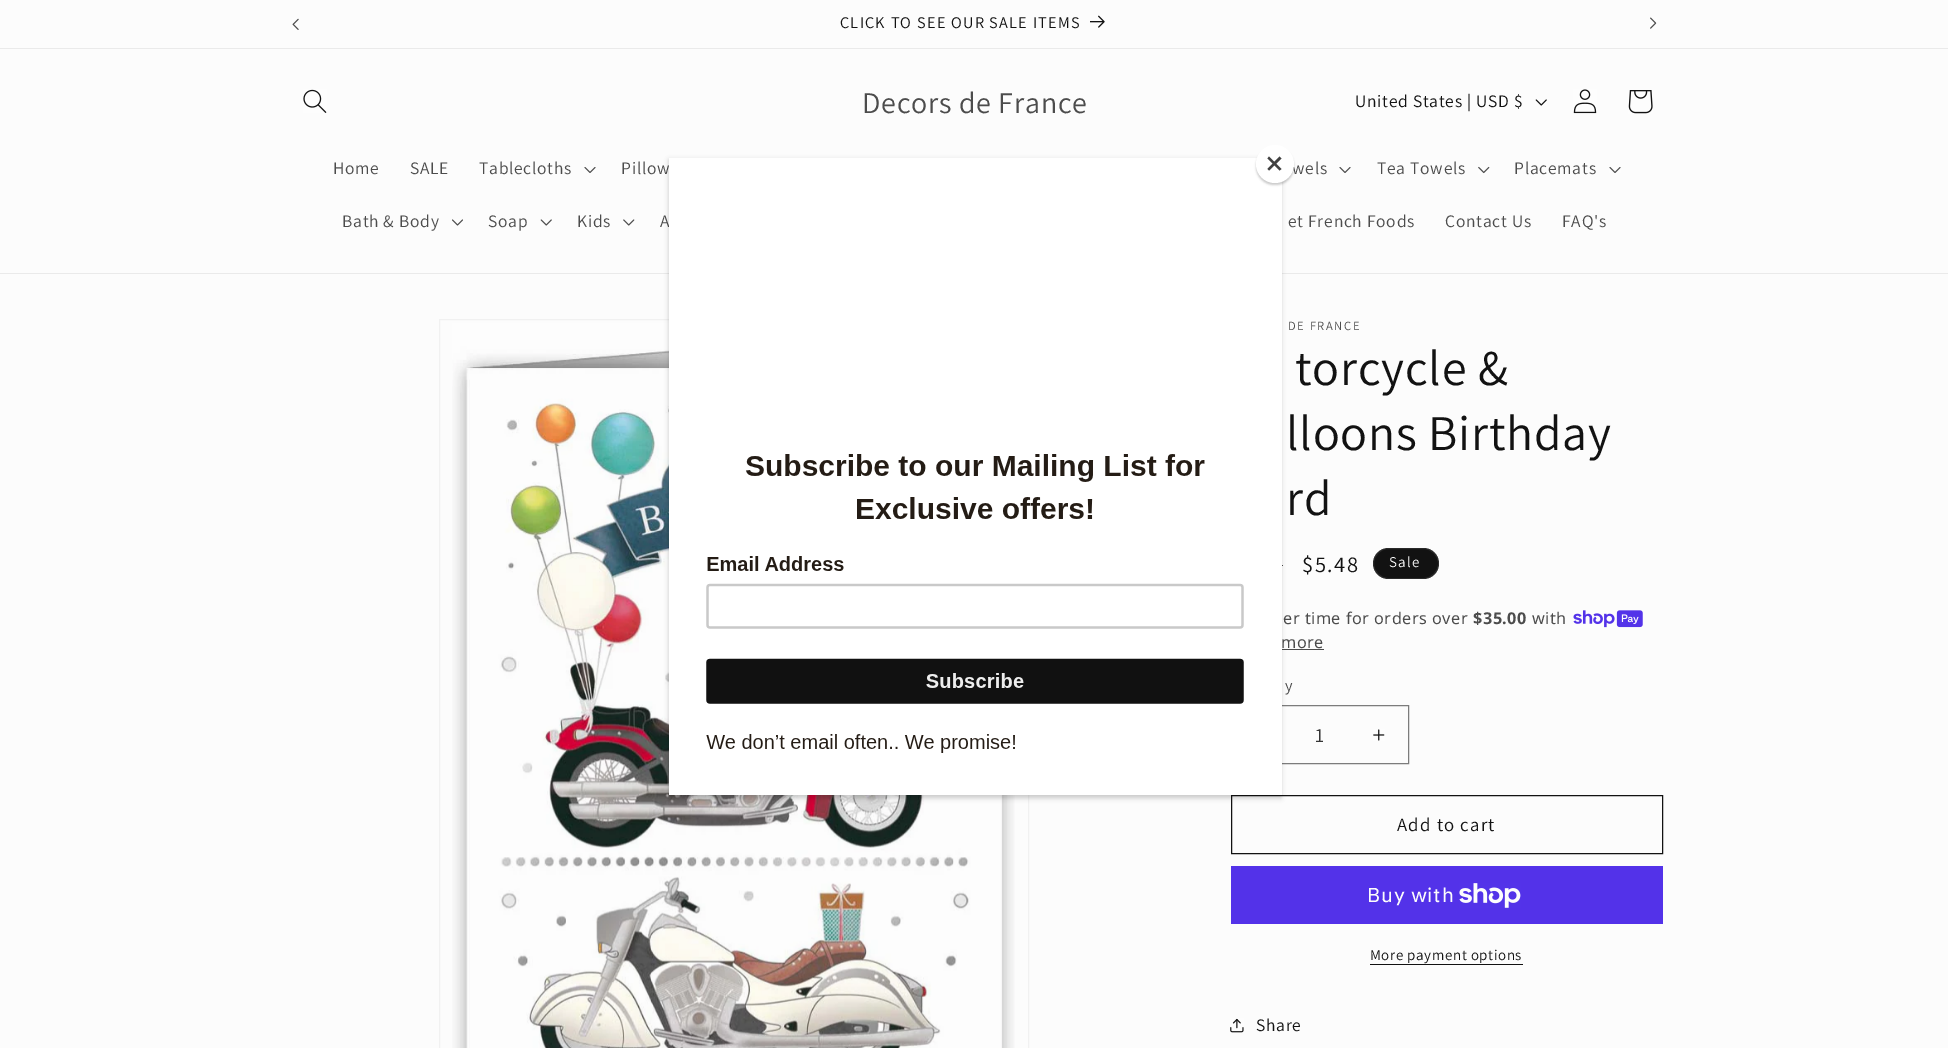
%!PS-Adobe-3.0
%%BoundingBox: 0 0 1948 1048
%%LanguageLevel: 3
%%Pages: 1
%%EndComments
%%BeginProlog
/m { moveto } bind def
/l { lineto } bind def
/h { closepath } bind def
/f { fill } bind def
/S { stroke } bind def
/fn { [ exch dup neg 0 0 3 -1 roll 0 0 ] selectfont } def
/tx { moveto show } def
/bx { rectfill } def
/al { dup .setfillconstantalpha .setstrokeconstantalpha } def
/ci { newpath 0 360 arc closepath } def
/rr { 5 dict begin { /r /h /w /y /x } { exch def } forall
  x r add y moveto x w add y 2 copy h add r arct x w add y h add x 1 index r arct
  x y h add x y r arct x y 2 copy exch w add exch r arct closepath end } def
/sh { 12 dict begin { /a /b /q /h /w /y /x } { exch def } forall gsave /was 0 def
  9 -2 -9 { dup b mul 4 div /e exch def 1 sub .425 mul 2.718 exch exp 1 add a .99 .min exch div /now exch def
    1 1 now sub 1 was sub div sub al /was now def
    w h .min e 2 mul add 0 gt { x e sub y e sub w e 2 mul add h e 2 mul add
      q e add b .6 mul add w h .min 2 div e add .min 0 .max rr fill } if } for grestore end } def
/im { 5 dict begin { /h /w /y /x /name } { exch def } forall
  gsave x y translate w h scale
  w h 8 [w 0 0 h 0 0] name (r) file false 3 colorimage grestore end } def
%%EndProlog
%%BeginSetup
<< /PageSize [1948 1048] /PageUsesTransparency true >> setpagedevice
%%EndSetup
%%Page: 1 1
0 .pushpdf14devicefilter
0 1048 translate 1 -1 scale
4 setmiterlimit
0.988 setgray
0 0 1948 1048 bx
0.918 setgray
0 48 1948 1 bx
(image0.raw) 292 18 7 12 im
/Assistant-Regular 16.25 fn
0.071 setgray
840 28 m 1.25 0 (CLICK TO SEE OUR SALE ITEMS) ashow
(image1.raw) 1090 15 15 13 im
(image2.raw) 1650 17 7 12 im
0.918 setgray
0 273 1948 1 bx
(image3.raw) 303 89 24 24 im
/Assistant-Regular 30 fn
0.298 setgray
862 113 m 0.75 0 (Decors de France) ashow
/Assistant-Regular 17.5 fn
0.071 setgray
1355 107 m 0.75 0 (United States | USD $) ashow
(image4.raw) 1535 99 12 7 im
(image5.raw) 1573 89 24 25 im
(image6.raw) 1628 90 25 24 im
0.298 setgray
333 174 m 0.75 0 (Home) ashow
410 174 m 0.75 0 (SALE) ashow
479 174 m 0.75 0 (Tablecloths) ashow
(image7.raw) 584 167 12 6 im
621 174 m 0.75 0 (Pillow) ashow
1292 174 m 0.75 0 (wels) ashow
(image7.raw) 1339 167 12 6 im
1377 174 m 0.75 0 (Tea Towels) ashow
(image8.raw) 1478 166 12 8 im
1514 174 m 0.75 0 (Placemats) ashow
(image7.raw) 1609 167 12 6 im
342 227 m 0.75 0 (Bath & Body) ashow
(image9.raw) 452 219 11 7 im
488 227 m 0.75 0 (Soap) ashow
(image10.raw) 540 219 12 7 im
577 227 m 0.75 0 (Kids) ashow
(image11.raw) 623 219 12 7 im
660 227 m 0.75 0 (A) ashow
1288 227 m 0.75 0 (et French Foods) ashow
1445 227 m 0.75 0 (Contact Us) ashow
1562 227 m 0.75 0 (FAQ's) ashow
0.945 setgray
439.5 319.5 589 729 rectstroke
(image13.raw) 452 323 563 725 im
0.75 al
0.071 setgray
1282 565 1 1 bx
1 al
0.298 setgray
1282 649 42 1 bx
(image15.raw) 1373 729 12 12 im
0.486 setgray
1231.5 705.5 177 58 rectstroke
0.071 setgray
1231.5 795.5 431 58 rectstroke
0 setgray
669 160 612 638 0 2.5 0.2 sh
(image12.raw) 669 158 613 637 im
1256 148 38 37 18.5 1 0.2 sh
1 setgray
1275 164 19 ci f
0.255 setgray
1279.5 156.5 m 1281.5 158.5 l 1269 170.5 l 1267.5 169 l h f
1267.5 158.5 m 1269 156.5 l 1281.5 169 l 1279.5 170.5 l h f
/Assistant-Regular 12.5 fn
0.298 setgray
1288 330 m 1.6 0 (DE FRANCE) ashow
/Assistant-Regular 50 fn
0.071 setgray
1295 385 m 0.75 0 (torcycle &) ashow
1286 450 m 0.75 0 (lloons Birthday) ashow
1286 515 m 0.75 0 (rd) ashow
/Assistant-Regular 22.5 fn
1302 572 m 1.6 0 ($5.48) ashow
1373 548 66 31 15.5 rr f
0.1 al
0.988 setgray
1373.5 548.5 65 30 15 rr S
/Assistant-Regular 15 fn
1 al
1389 567 m 1.25 0 (Sale) ashow
/NotoSans-Regular 16.25 fn
0.298 setgray
1283 624 m 0.5 0 (er time for orders over) ashow
/NotoSans-Bold 16.25 fn
1473 624 m 0.5 0 ($35.00) ashow
/NotoSans-Regular 16.25 fn
1532 624 m 0.5 0 (with) ashow
(image14.raw) 1573 610 70 18 im
1281 648 m 0.5 0 (more) ashow
/Assistant-Regular 16.25 fn
1285 691 m 0.5 0 (y) ashow
/Assistant-Regular 20 fn
0.208 setgray
(1) 1315 742 tx
/Assistant-Regular 18.75 fn
0.071 setgray
1397 831 m 1.25 0 (Add to cart) ashow
0.325 0.196 0.914 setrgbcolor
1231 866 432 58 bx
/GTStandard-Regular 20 fn
0.988 setgray
1367 902 m 0.75 0 (Buy with) ashow
(image16.raw) 1459 883 62 25 im
/Assistant-Regular 15 fn
0.071 setgray
1370 960 m 0.6 0 (More payment options) ashow
1370 964 153 1 bx
(image17.raw) 1230 1018 14 15 im
/Assistant-Regular 17.5 fn
1256 1031 m 0.75 0 (Share) ashow
.poppdf14devicefilter showpage
%%EOF
